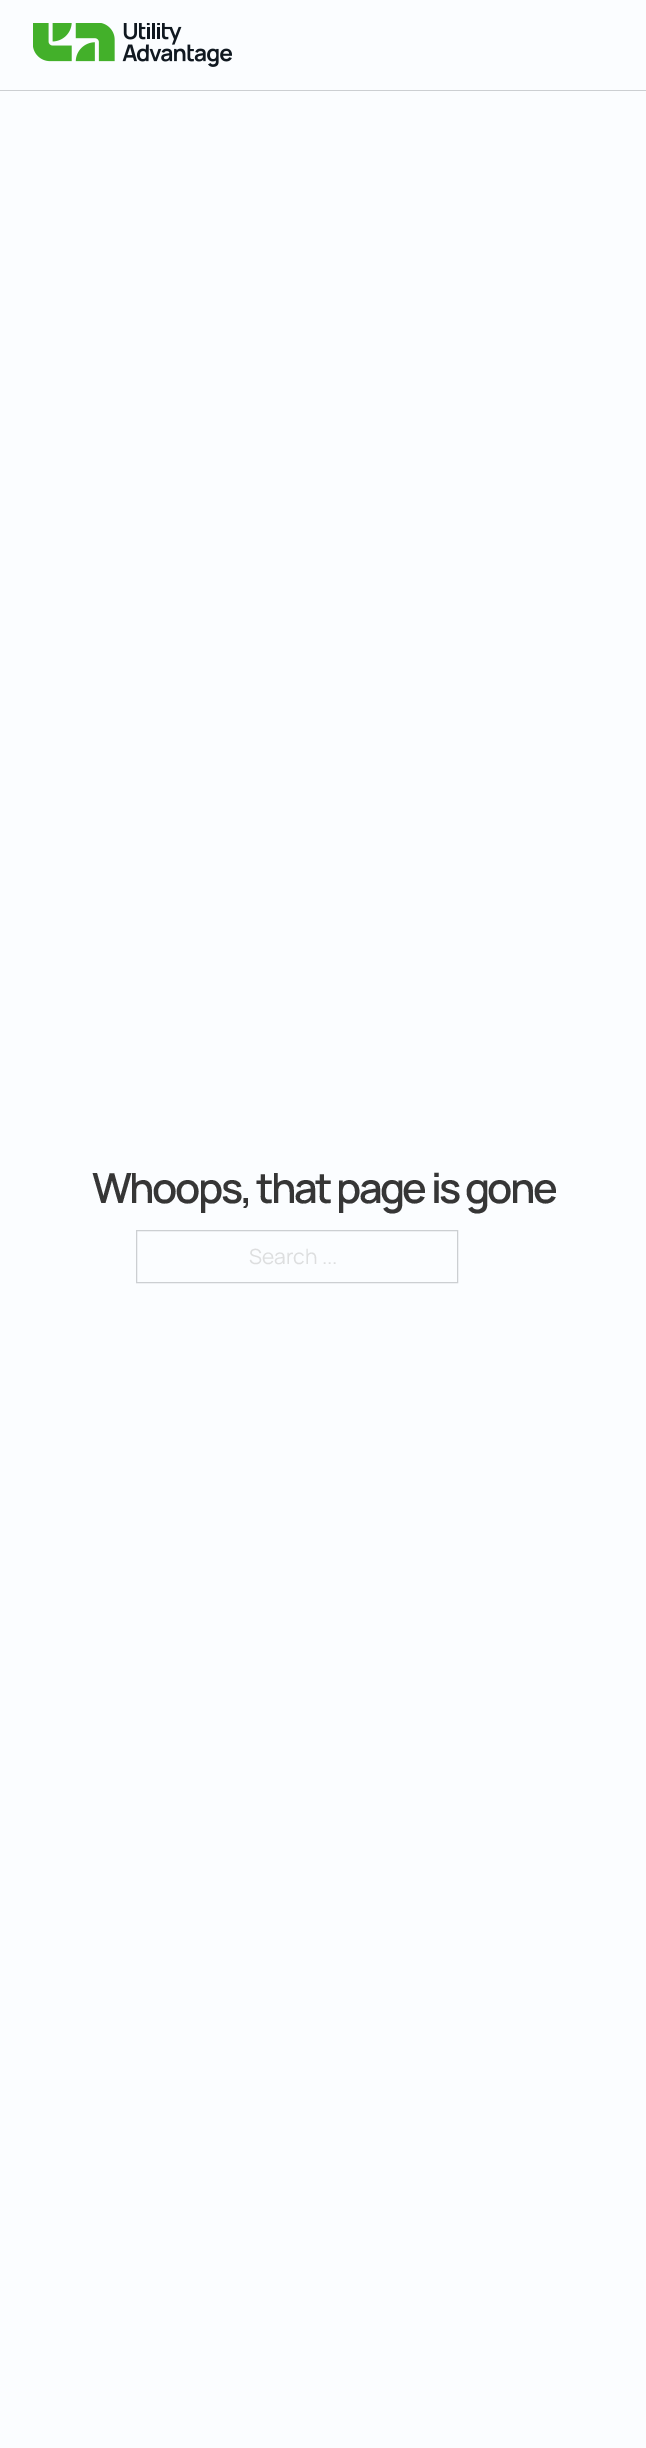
%!PS-Adobe-3.0
%%BoundingBox: 0 0 646 2448
%%LanguageLevel: 3
%%Pages: 1
%%EndComments
%%BeginProlog
/m { moveto } bind def
/fn { [ exch dup neg 0 0 3 -1 roll 0 0 ] selectfont } def
/tx { moveto show } def
/bx { rectfill } def
/im { 5 dict begin { /h /w /y /x /name } { exch def } forall
  gsave x y translate w h scale
  w h 8 [w 0 0 h 0 0] name (r) file false 3 colorimage grestore end } def
%%EndProlog
%%BeginSetup
<< /PageSize [646 2448] >> setpagedevice
%%EndSetup
%%Page: 1 1
0 2448 translate 1 -1 scale
4 setmiterlimit
0.984 0.992 1 setrgbcolor
0 0 646 2448 bx
0.8 0.812 0.824 setrgbcolor
0 90 646 1 bx
(image0.raw) 33 23 199 44 im
/Manrope-SemiBold 41.5 fn
0.212 setgray
92 1203 m -2.5 0 (Whoops, that page is gone) ashow
0.8 0.812 0.824 setrgbcolor
136.5 1230.5 321 52 rectstroke
/Manrope-Regular 21 fn
0.867 0.871 0.875 setrgbcolor
(Search ...) 249 1264 tx
showpage
%%EOF
